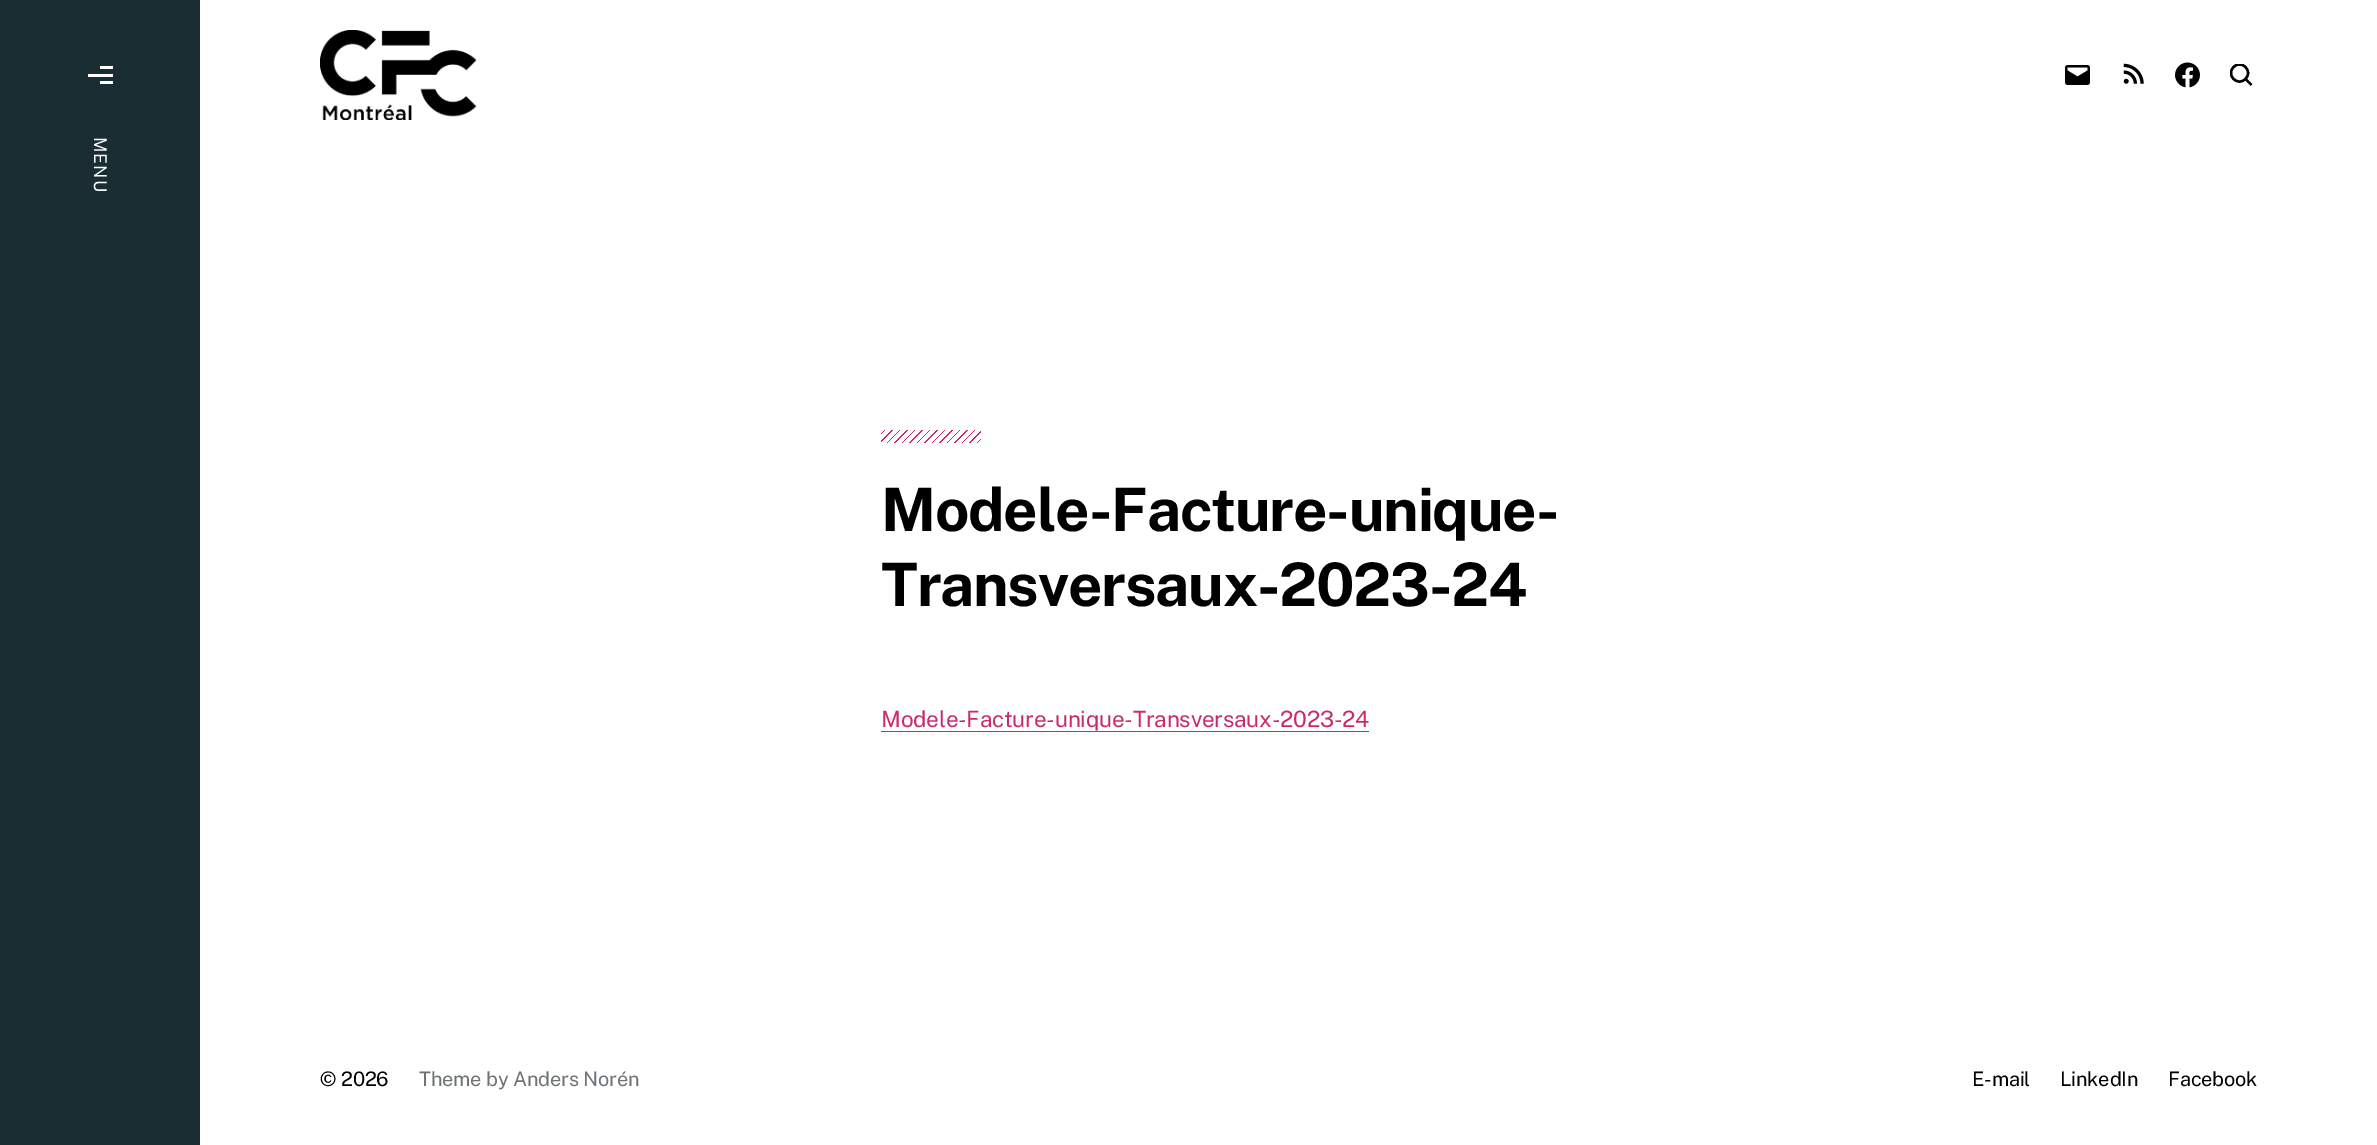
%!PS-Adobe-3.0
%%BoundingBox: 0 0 2377 1145
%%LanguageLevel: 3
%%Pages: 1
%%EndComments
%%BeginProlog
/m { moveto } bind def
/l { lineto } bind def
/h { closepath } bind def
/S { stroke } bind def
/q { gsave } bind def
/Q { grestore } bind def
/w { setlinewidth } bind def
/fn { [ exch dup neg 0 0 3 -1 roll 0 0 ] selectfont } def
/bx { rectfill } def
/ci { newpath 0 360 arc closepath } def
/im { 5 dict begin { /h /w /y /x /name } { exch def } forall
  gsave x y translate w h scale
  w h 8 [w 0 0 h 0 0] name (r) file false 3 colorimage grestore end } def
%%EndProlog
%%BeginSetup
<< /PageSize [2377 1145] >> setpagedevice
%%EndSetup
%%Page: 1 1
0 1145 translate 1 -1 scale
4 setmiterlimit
1 setgray
0 0 2377 1145 bx
0.102 0.176 0.2 setrgbcolor
0 0 200 1145 bx
(image0.raw) 320 30 157 90 im
(image1.raw) 2065 65 25 20 im
(image2.raw) 2123 63 21 21 im
(image3.raw) 2175 62 25 26 im
q
2230 64 23 22 rectclip
0 setgray
2.4 w
2239.5 73 8.5 ci S
Q
0 setgray
2.4 w
2251.5 85 m 2245 78.5 l S
1 setgray
100 66 13 3 bx
88 74 25 3 bx
100 81 13 3 bx
/PublicSans-Thin 17.5 fn
q 94 137 translate 90 rotate 0 0 m 1 0 (MENU) ashow Q
q 881 430 m 885 430 l 885 443 l 881 443 l h clip newpath
<< /ShadingType 2 /ColorSpace /DeviceRGB /Coords [885 445 870 430] /Extend [true true] /Function << /FunctionType 3 /Domain [0 1] /Functions [<< /FunctionType 2 /Domain [0 1] /C0 [1 1 1] /C1 [1 1 1] /N 1 >> << /FunctionType 2 /Domain [0 1] /C0 [0.792 0.161 0.42] /C1 [0.792 0.161 0.42] /N 1 >> << /FunctionType 2 /Domain [0 1] /C0 [1 1 1] /C1 [1 1 1] /N 1 >> << /FunctionType 2 /Domain [0 1] /C0 [0.792 0.161 0.42] /C1 [0.792 0.161 0.42] /N 1 >> << /FunctionType 2 /Domain [0 1] /C0 [1 1 1] /C1 [1 1 1] /N 1 >> << /FunctionType 2 /Domain [0 1] /C0 [0.792 0.161 0.42] /C1 [0.792 0.161 0.42] /N 1 >> << /FunctionType 2 /Domain [0 1] /C0 [1 1 1] /C1 [1 1 1] /N 1 >>] /Bounds [0.23 0.28 0.47 0.53 0.72 0.78] /Encode [0 1 0 1 0 1 0 1 0 1 0 1 0 1] >> >> shfill Q
q 885 430 m 900 430 l 900 443 l 885 443 l h clip newpath
<< /ShadingType 2 /ColorSpace /DeviceRGB /Coords [900 445 885 430] /Extend [true true] /Function << /FunctionType 3 /Domain [0 1] /Functions [<< /FunctionType 2 /Domain [0 1] /C0 [1 1 1] /C1 [1 1 1] /N 1 >> << /FunctionType 2 /Domain [0 1] /C0 [0.792 0.161 0.42] /C1 [0.792 0.161 0.42] /N 1 >> << /FunctionType 2 /Domain [0 1] /C0 [1 1 1] /C1 [1 1 1] /N 1 >> << /FunctionType 2 /Domain [0 1] /C0 [0.792 0.161 0.42] /C1 [0.792 0.161 0.42] /N 1 >> << /FunctionType 2 /Domain [0 1] /C0 [1 1 1] /C1 [1 1 1] /N 1 >> << /FunctionType 2 /Domain [0 1] /C0 [0.792 0.161 0.42] /C1 [0.792 0.161 0.42] /N 1 >> << /FunctionType 2 /Domain [0 1] /C0 [1 1 1] /C1 [1 1 1] /N 1 >>] /Bounds [0.23 0.28 0.47 0.53 0.72 0.78] /Encode [0 1 0 1 0 1 0 1 0 1 0 1 0 1] >> >> shfill Q
q 900 430 m 915 430 l 915 443 l 900 443 l h clip newpath
<< /ShadingType 2 /ColorSpace /DeviceRGB /Coords [915 445 900 430] /Extend [true true] /Function << /FunctionType 3 /Domain [0 1] /Functions [<< /FunctionType 2 /Domain [0 1] /C0 [1 1 1] /C1 [1 1 1] /N 1 >> << /FunctionType 2 /Domain [0 1] /C0 [0.792 0.161 0.42] /C1 [0.792 0.161 0.42] /N 1 >> << /FunctionType 2 /Domain [0 1] /C0 [1 1 1] /C1 [1 1 1] /N 1 >> << /FunctionType 2 /Domain [0 1] /C0 [0.792 0.161 0.42] /C1 [0.792 0.161 0.42] /N 1 >> << /FunctionType 2 /Domain [0 1] /C0 [1 1 1] /C1 [1 1 1] /N 1 >> << /FunctionType 2 /Domain [0 1] /C0 [0.792 0.161 0.42] /C1 [0.792 0.161 0.42] /N 1 >> << /FunctionType 2 /Domain [0 1] /C0 [1 1 1] /C1 [1 1 1] /N 1 >>] /Bounds [0.23 0.28 0.47 0.53 0.72 0.78] /Encode [0 1 0 1 0 1 0 1 0 1 0 1 0 1] >> >> shfill Q
q 915 430 m 930 430 l 930 443 l 915 443 l h clip newpath
<< /ShadingType 2 /ColorSpace /DeviceRGB /Coords [930 445 915 430] /Extend [true true] /Function << /FunctionType 3 /Domain [0 1] /Functions [<< /FunctionType 2 /Domain [0 1] /C0 [1 1 1] /C1 [1 1 1] /N 1 >> << /FunctionType 2 /Domain [0 1] /C0 [0.792 0.161 0.42] /C1 [0.792 0.161 0.42] /N 1 >> << /FunctionType 2 /Domain [0 1] /C0 [1 1 1] /C1 [1 1 1] /N 1 >> << /FunctionType 2 /Domain [0 1] /C0 [0.792 0.161 0.42] /C1 [0.792 0.161 0.42] /N 1 >> << /FunctionType 2 /Domain [0 1] /C0 [1 1 1] /C1 [1 1 1] /N 1 >> << /FunctionType 2 /Domain [0 1] /C0 [0.792 0.161 0.42] /C1 [0.792 0.161 0.42] /N 1 >> << /FunctionType 2 /Domain [0 1] /C0 [1 1 1] /C1 [1 1 1] /N 1 >>] /Bounds [0.23 0.28 0.47 0.53 0.72 0.78] /Encode [0 1 0 1 0 1 0 1 0 1 0 1 0 1] >> >> shfill Q
q 930 430 m 945 430 l 945 443 l 930 443 l h clip newpath
<< /ShadingType 2 /ColorSpace /DeviceRGB /Coords [945 445 930 430] /Extend [true true] /Function << /FunctionType 3 /Domain [0 1] /Functions [<< /FunctionType 2 /Domain [0 1] /C0 [1 1 1] /C1 [1 1 1] /N 1 >> << /FunctionType 2 /Domain [0 1] /C0 [0.792 0.161 0.42] /C1 [0.792 0.161 0.42] /N 1 >> << /FunctionType 2 /Domain [0 1] /C0 [1 1 1] /C1 [1 1 1] /N 1 >> << /FunctionType 2 /Domain [0 1] /C0 [0.792 0.161 0.42] /C1 [0.792 0.161 0.42] /N 1 >> << /FunctionType 2 /Domain [0 1] /C0 [1 1 1] /C1 [1 1 1] /N 1 >> << /FunctionType 2 /Domain [0 1] /C0 [0.792 0.161 0.42] /C1 [0.792 0.161 0.42] /N 1 >> << /FunctionType 2 /Domain [0 1] /C0 [1 1 1] /C1 [1 1 1] /N 1 >>] /Bounds [0.23 0.28 0.47 0.53 0.72 0.78] /Encode [0 1 0 1 0 1 0 1 0 1 0 1 0 1] >> >> shfill Q
q 945 430 m 960 430 l 960 443 l 945 443 l h clip newpath
<< /ShadingType 2 /ColorSpace /DeviceRGB /Coords [960 445 945 430] /Extend [true true] /Function << /FunctionType 3 /Domain [0 1] /Functions [<< /FunctionType 2 /Domain [0 1] /C0 [1 1 1] /C1 [1 1 1] /N 1 >> << /FunctionType 2 /Domain [0 1] /C0 [0.792 0.161 0.42] /C1 [0.792 0.161 0.42] /N 1 >> << /FunctionType 2 /Domain [0 1] /C0 [1 1 1] /C1 [1 1 1] /N 1 >> << /FunctionType 2 /Domain [0 1] /C0 [0.792 0.161 0.42] /C1 [0.792 0.161 0.42] /N 1 >> << /FunctionType 2 /Domain [0 1] /C0 [1 1 1] /C1 [1 1 1] /N 1 >> << /FunctionType 2 /Domain [0 1] /C0 [0.792 0.161 0.42] /C1 [0.792 0.161 0.42] /N 1 >> << /FunctionType 2 /Domain [0 1] /C0 [1 1 1] /C1 [1 1 1] /N 1 >>] /Bounds [0.23 0.28 0.47 0.53 0.72 0.78] /Encode [0 1 0 1 0 1 0 1 0 1 0 1 0 1] >> >> shfill Q
q 960 430 m 975 430 l 975 443 l 960 443 l h clip newpath
<< /ShadingType 2 /ColorSpace /DeviceRGB /Coords [975 445 960 430] /Extend [true true] /Function << /FunctionType 3 /Domain [0 1] /Functions [<< /FunctionType 2 /Domain [0 1] /C0 [1 1 1] /C1 [1 1 1] /N 1 >> << /FunctionType 2 /Domain [0 1] /C0 [0.792 0.161 0.42] /C1 [0.792 0.161 0.42] /N 1 >> << /FunctionType 2 /Domain [0 1] /C0 [1 1 1] /C1 [1 1 1] /N 1 >> << /FunctionType 2 /Domain [0 1] /C0 [0.792 0.161 0.42] /C1 [0.792 0.161 0.42] /N 1 >> << /FunctionType 2 /Domain [0 1] /C0 [1 1 1] /C1 [1 1 1] /N 1 >> << /FunctionType 2 /Domain [0 1] /C0 [0.792 0.161 0.42] /C1 [0.792 0.161 0.42] /N 1 >> << /FunctionType 2 /Domain [0 1] /C0 [1 1 1] /C1 [1 1 1] /N 1 >>] /Bounds [0.23 0.28 0.47 0.53 0.72 0.78] /Encode [0 1 0 1 0 1 0 1 0 1 0 1 0 1] >> >> shfill Q
q 975 430 m 981 430 l 981 443 l 975 443 l h clip newpath
<< /ShadingType 2 /ColorSpace /DeviceRGB /Coords [990 445 975 430] /Extend [true true] /Function << /FunctionType 3 /Domain [0 1] /Functions [<< /FunctionType 2 /Domain [0 1] /C0 [1 1 1] /C1 [1 1 1] /N 1 >> << /FunctionType 2 /Domain [0 1] /C0 [0.792 0.161 0.42] /C1 [0.792 0.161 0.42] /N 1 >> << /FunctionType 2 /Domain [0 1] /C0 [1 1 1] /C1 [1 1 1] /N 1 >> << /FunctionType 2 /Domain [0 1] /C0 [0.792 0.161 0.42] /C1 [0.792 0.161 0.42] /N 1 >> << /FunctionType 2 /Domain [0 1] /C0 [1 1 1] /C1 [1 1 1] /N 1 >> << /FunctionType 2 /Domain [0 1] /C0 [0.792 0.161 0.42] /C1 [0.792 0.161 0.42] /N 1 >> << /FunctionType 2 /Domain [0 1] /C0 [1 1 1] /C1 [1 1 1] /N 1 >>] /Bounds [0.23 0.28 0.47 0.53 0.72 0.78] /Encode [0 1 0 1 0 1 0 1 0 1 0 1 0 1] >> >> shfill Q
/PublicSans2-Thin 60 fn
0 setgray
881 531 m -1.2 0 (Modele-Facture-unique-) ashow
881 606 m -1.2 0 (Transversaux-2023-24) ashow
/PublicSans-Thin 22.5 fn
0.792 0.161 0.42 setrgbcolor
881 727 m -0.2 0 (Modele-Facture-unique-Transversaux-2023-24) ashow
881 731 488 1 bx
/PublicSans-Thin 20 fn
0 setgray
320 1086 m -0.2 0 (© 2026) ashow
0.435 0.451 0.463 setrgbcolor
419 1086 m -0.2 0 (Theme by Anders Norén) ashow
0 setgray
1972 1086 m -0.2 0 (E-mail) ashow
2060 1086 m -0.2 0 (LinkedIn) ashow
2168 1086 m -0.2 0 (Facebook) ashow
showpage
%%EOF
